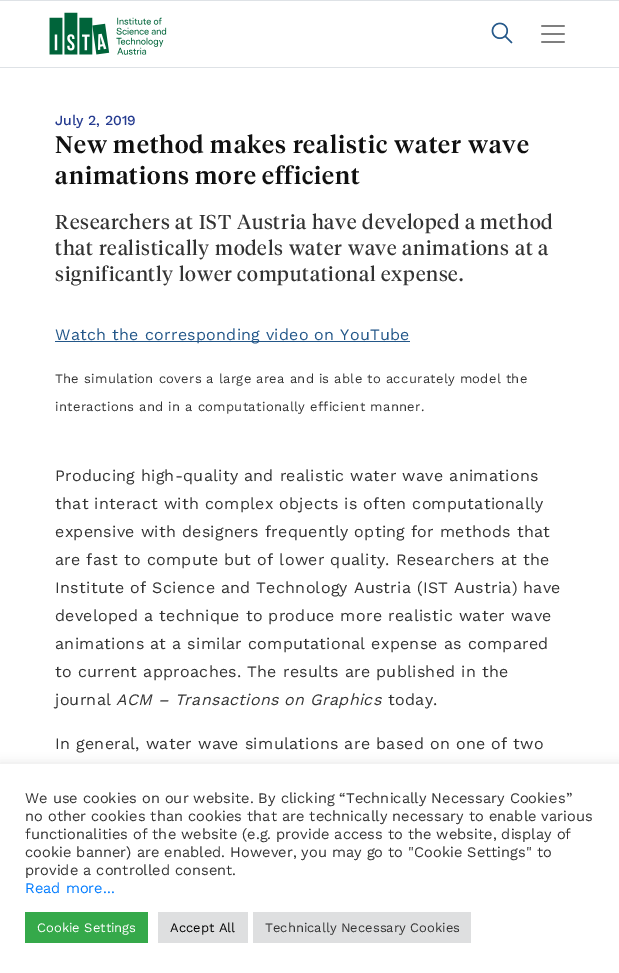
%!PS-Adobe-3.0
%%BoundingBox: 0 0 619 973
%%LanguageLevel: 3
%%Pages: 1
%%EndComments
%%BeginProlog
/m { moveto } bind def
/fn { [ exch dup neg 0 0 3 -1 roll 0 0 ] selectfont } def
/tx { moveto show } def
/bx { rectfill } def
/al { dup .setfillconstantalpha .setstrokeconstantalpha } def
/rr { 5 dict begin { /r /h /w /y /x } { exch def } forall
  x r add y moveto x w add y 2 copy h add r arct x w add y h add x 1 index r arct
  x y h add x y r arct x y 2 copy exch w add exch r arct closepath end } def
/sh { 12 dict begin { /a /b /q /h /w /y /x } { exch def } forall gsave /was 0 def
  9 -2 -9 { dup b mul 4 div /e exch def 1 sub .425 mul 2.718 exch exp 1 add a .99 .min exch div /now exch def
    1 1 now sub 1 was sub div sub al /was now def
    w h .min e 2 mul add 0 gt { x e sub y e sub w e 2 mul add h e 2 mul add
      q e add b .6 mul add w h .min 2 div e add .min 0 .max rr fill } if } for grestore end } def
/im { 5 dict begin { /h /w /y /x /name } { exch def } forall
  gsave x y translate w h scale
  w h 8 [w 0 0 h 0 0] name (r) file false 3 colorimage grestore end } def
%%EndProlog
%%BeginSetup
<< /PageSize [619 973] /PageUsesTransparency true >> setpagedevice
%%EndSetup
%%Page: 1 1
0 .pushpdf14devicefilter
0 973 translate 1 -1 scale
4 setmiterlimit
1 setgray
0 0 619 973 bx
0.871 0.886 0.902 setrgbcolor
0 0 619 1 bx
0 67 619 1 bx
(image0.raw) 49 12 118 43 im
(image1.raw) 491 22 22 22 im
(image2.raw) 541 25 24 18 im
/WorkSans-Medium 14 fn
0.145 0.231 0.565 setrgbcolor
(July 2, 2019) 55 125 tx
/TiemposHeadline-Medium 24 fn
0.063 setgray
55 153 m 1 0 (New method makes realistic water wave) ashow
55 184 m 1 0 (animations more efficient) ashow
/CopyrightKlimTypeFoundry-Regular 20 fn
0.2 setgray
55 229 m 0.8 0 (Researchers at IST Austria have developed a method) ashow
55 255 m 0.8 0 (that realistically models water wave animations at a) ashow
55 281 m 0.8 0 (significantly lower computational expense.) ashow
0.137 0.341 0.537 setrgbcolor
55 341 355 1 bx
/WorkSans-Regular 16 fn
55 340 m 0.3 0 (Watch the corresponding video on YouTube) ashow
/WorkSans-Regular 13 fn
0.2 setgray
55 383 m 0.3 0 (The simulation covers a large area and is able to accurately model the) ashow
55 411 m 0.3 0 (interactions and in a computationally efficient manner.) ashow
/WorkSans-Regular 16 fn
55 481 m 0.3 0 (Producing high-quality and realistic water wave animations) ashow
55 509 m 0.3 0 (that interact with complex objects is often computationally) ashow
55 537 m 0.3 0 (expensive with designers frequently opting for methods that) ashow
55 565 m 0.3 0 (are fast to compute but of lower quality. Researchers at the) ashow
55 593 m 0.3 0 (Institute of Science and Technology Austria \(IST Austria\) have) ashow
55 621 m 0.3 0 (developed a technique to produce more realistic water wave) ashow
55 649 m 0.3 0 (animations at a similar computational expense as compared) ashow
55 677 m 0.3 0 (to current approaches. The results are published in the) ashow
55 705 m 0.3 0 (journal) ashow
/WorkSans-Italic 16 fn
116 705 m 0.3 0 (ACM – Transactions on Graphics) ashow
/WorkSans-Regular 16 fn
388 705 m 0.3 0 (today.) ashow
55 749 m 0.3 0 (In general, water wave simulations are based on one of two) ashow
0.675 0.671 0.671 setrgbcolor
0 763 619 209 0 5 0.3 sh
1 setgray
0 764 619 209 bx
/WorkSans-Regular 14.65 fn
0.2 setgray
(We use cookies on our website. By clicking “Technically Necessary Cookies”) 25 803 tx
(no other cookies than cookies that are technically necessary to enable various) 25 821 tx
(functionalities of the website \(e.g. provide access to the website, display of) 25 839 tx
(cookie banner\) are enabled. However, you may go to "Cookie Settings" to) 25 857 tx
(provide a controlled consent.) 25 875 tx
0 0.482 1 setrgbcolor
(Read more...) 25 893 tx
0.208 0.663 0.29 setrgbcolor
25 912 123 31 bx
/WorkSans-Regular 13 fn
1 setgray
(Cookie Settings) 37 932 tx
0.871 0.875 0.878 setrgbcolor
158 912 90 31 bx
0 setgray
(Accept All) 170 932 tx
0.871 0.875 0.878 setrgbcolor
253 912 218 31 bx
0.2 setgray
(Technically Necessary Cookies) 265 932 tx
.poppdf14devicefilter showpage
%%EOF
